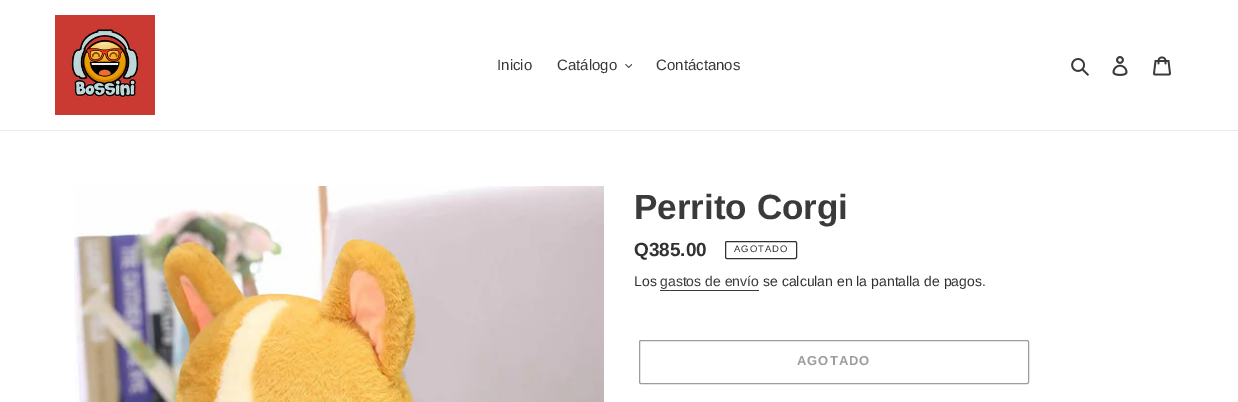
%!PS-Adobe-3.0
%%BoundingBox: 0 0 1238 402
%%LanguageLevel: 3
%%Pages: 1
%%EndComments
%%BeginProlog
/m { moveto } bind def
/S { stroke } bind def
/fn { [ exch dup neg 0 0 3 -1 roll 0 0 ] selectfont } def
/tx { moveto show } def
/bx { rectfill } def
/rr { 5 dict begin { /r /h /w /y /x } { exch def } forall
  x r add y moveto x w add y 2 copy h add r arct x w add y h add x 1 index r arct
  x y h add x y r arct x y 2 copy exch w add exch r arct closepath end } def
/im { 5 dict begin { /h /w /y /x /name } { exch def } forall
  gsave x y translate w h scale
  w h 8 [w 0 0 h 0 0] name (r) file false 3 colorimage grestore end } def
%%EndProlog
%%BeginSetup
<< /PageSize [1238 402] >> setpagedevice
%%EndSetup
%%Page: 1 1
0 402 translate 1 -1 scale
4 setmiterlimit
1 setgray
0 0 1238 402 bx
0.922 setgray
0 130 1238 1 bx
(image0.raw) 55 15 100 100 im
/LiberationSans-Regular 15 fn
0.227 setgray
(Inicio) 497 70 tx
(Catálogo) 557 70 tx
(image1.raw) 625 64 7 4 im
(Contáctanos) 656 70 tx
(image2.raw) 1071 58 18 18 im
(image3.raw) 1112 56 16 20 im
(image4.raw) 1153 56 18 20 im
(image5.raw) 74 186 530 216 im
/LiberationSans-Bold 35 fn
(Perrito Corgi) 634 219 tx
/LiberationSans-Bold 19 fn
0.2 0.196 0.196 setrgbcolor
(Q385.00) 634 256 tx
725.5 241.5 71 17 1.5 rr S
/LiberationSans-Regular 9.5 fn
734 252 m 1 0 (AGOTADO) ashow
/LiberationSans-Regular 14 fn
(Los) 634 286 tx
0.227 setgray
(gastos de envío) 660 286 tx
660 290 99 1 bx
0.2 0.196 0.196 setrgbcolor
(se calculan en la pantalla de pagos.) 763 286 tx
0.616 setgray
639.5 340.5 389 43 1.5 rr S
/LiberationSans-Bold 13 fn
797 365 m 1 0 (AGOTADO) ashow
showpage
%%EOF
